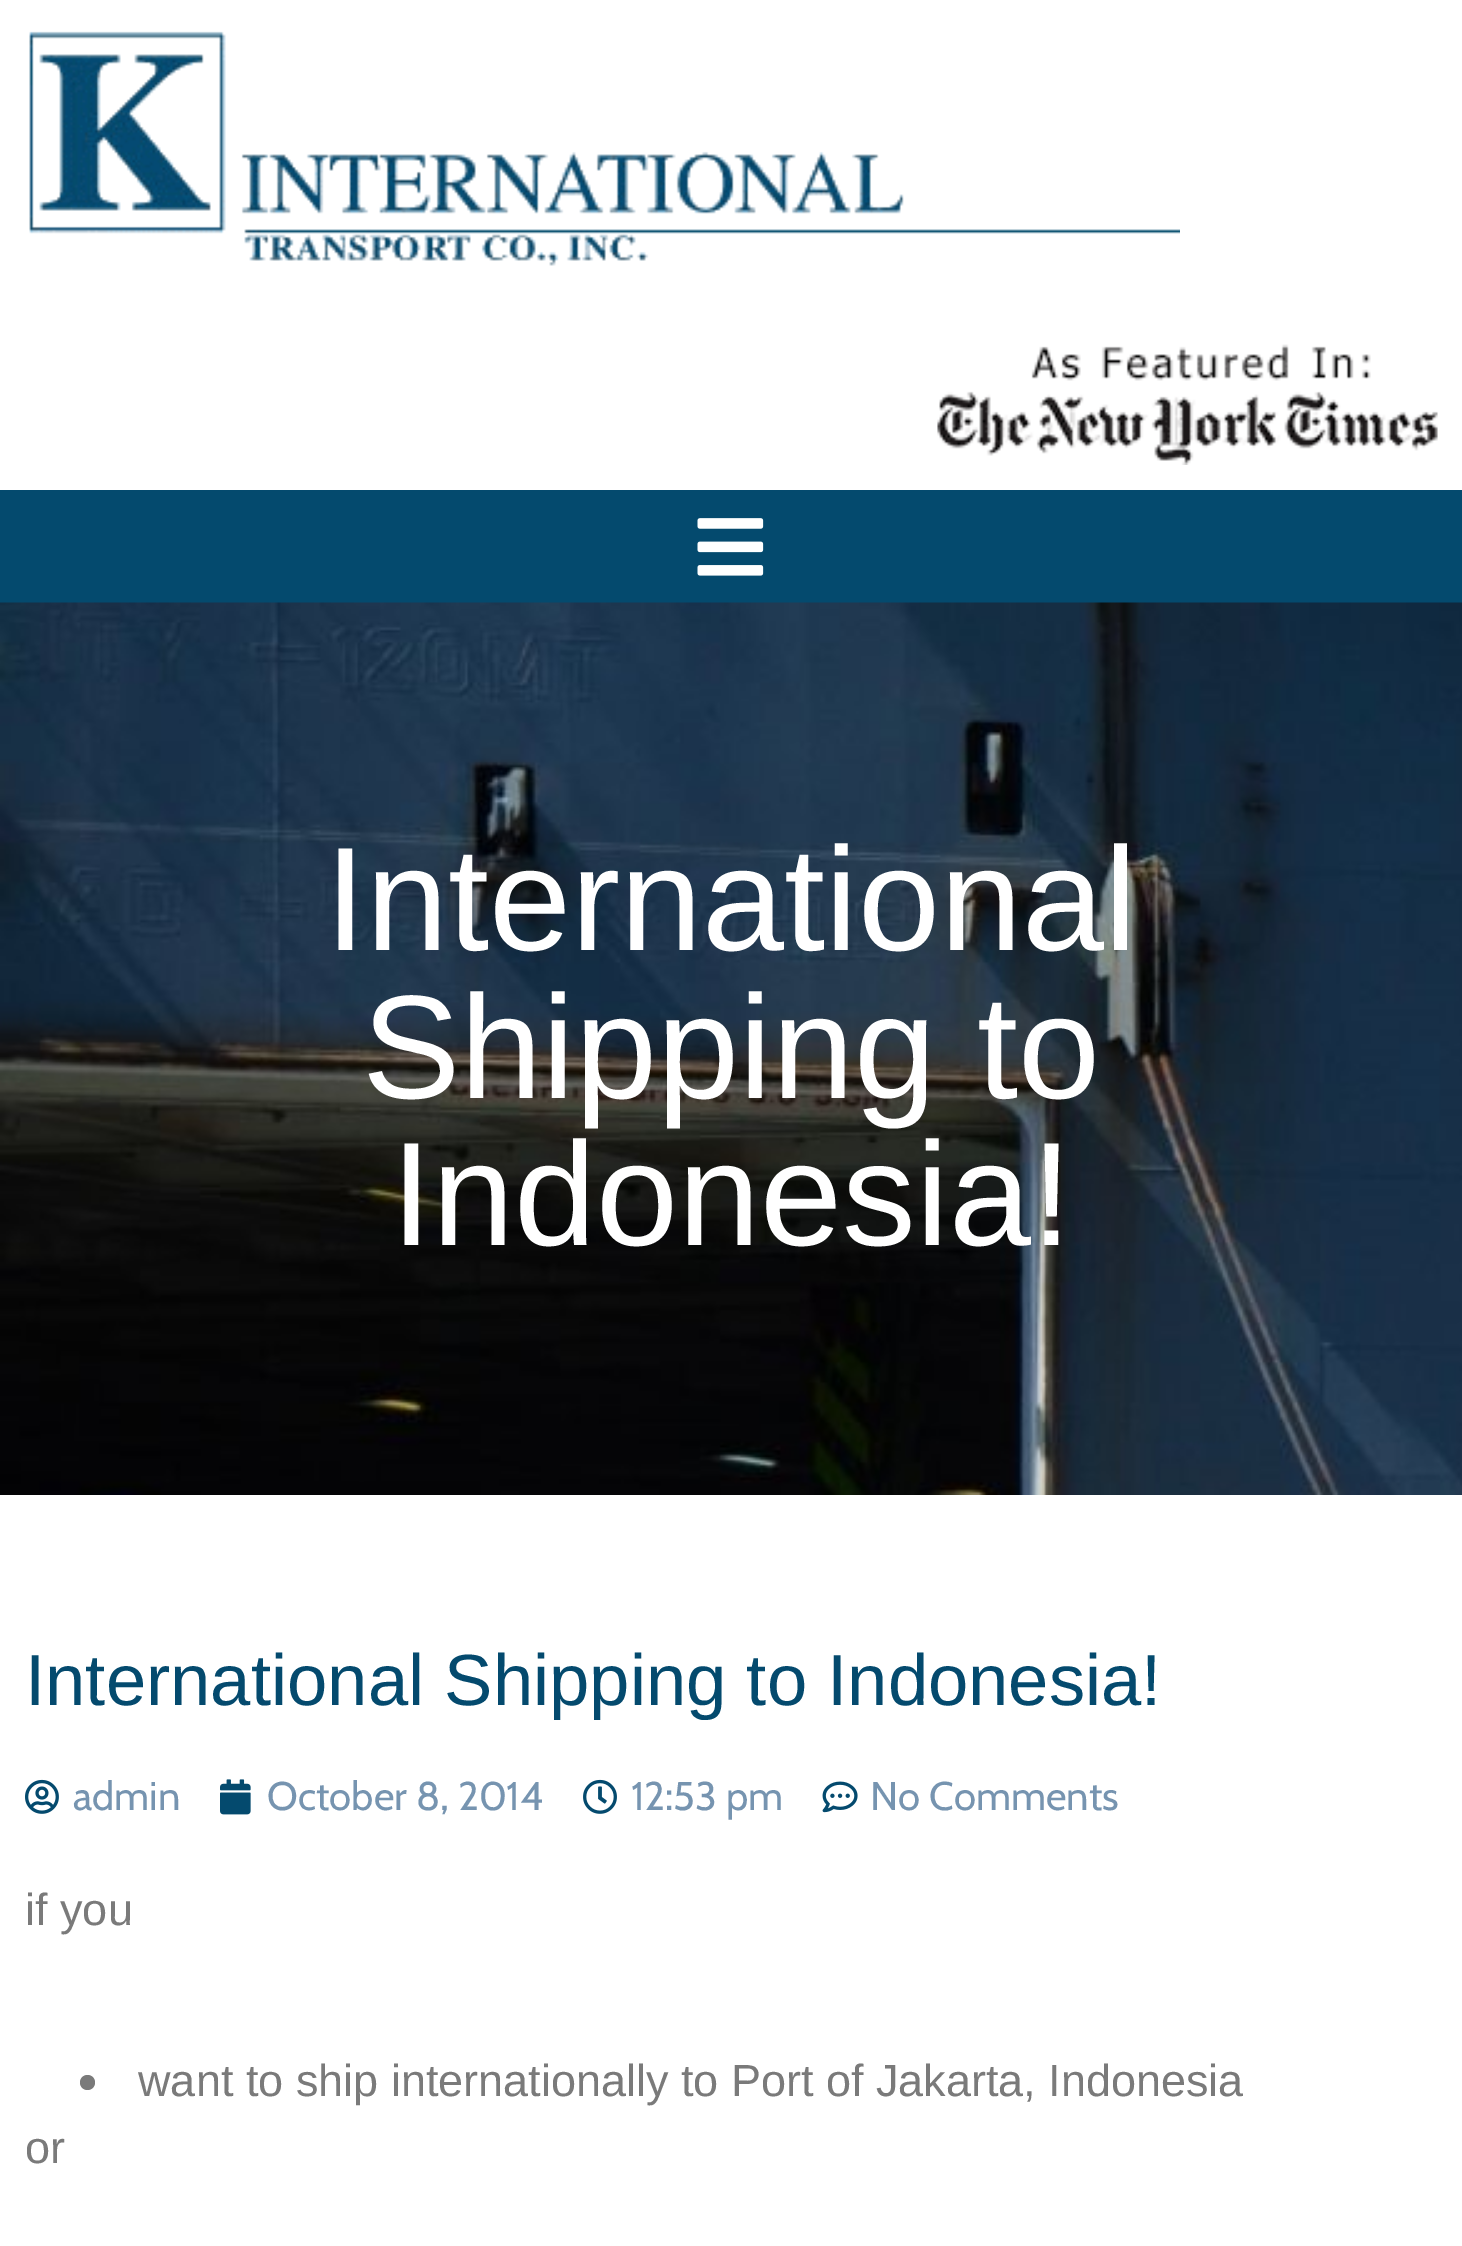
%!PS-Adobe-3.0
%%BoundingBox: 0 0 1462 2246
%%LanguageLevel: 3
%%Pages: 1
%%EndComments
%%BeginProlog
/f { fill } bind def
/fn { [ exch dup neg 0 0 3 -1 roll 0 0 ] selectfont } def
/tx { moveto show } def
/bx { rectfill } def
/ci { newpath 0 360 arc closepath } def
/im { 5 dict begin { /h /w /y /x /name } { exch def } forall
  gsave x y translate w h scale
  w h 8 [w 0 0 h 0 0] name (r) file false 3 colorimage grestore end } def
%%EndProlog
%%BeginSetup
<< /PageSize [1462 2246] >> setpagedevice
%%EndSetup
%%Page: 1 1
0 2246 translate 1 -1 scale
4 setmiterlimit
1 setgray
0 0 1462 2246 bx
(image0.raw) 29 31 1151 235 im
(image1.raw) 937 344 501 121 im
0.016 0.29 0.431 setrgbcolor
0 490 1462 113 bx
(image2.raw) 697 518 67 58 im
(image3.raw) 0 602 1462 893 im
/LiberationSans-Regular 147.5 fn
1 setgray
(International) 325 950 tx
(Shipping to) 362 1098 tx
(Indonesia!) 391 1245 tx
/LiberationSans-Regular 72.5 fn
0.016 0.29 0.431 setrgbcolor
(International Shipping to Indonesia!) 25 1705 tx
(image4.raw) 25 1779 34 35 im
/Cabin-Regular 40 fn
0.463 0.58 0.69 setrgbcolor
(admin) 73 1810 tx
(image5.raw) 220 1779 31 36 im
(October 8, 2014) 267 1810 tx
(image6.raw) 583 1779 34 35 im
(12:53 pm) 631 1810 tx
(image7.raw) 822 1781 36 32 im
(No Comments) 870 1810 tx
/LiberationSans-Regular 45 fn
0.478 setgray
(if you) 25 1925 tx
87.5 2082.5 7.5 ci f
(want to ship internationally to Port of Jakarta, Indonesia) 138 2096 tx
(or) 25 2163 tx
showpage
%%EOF
